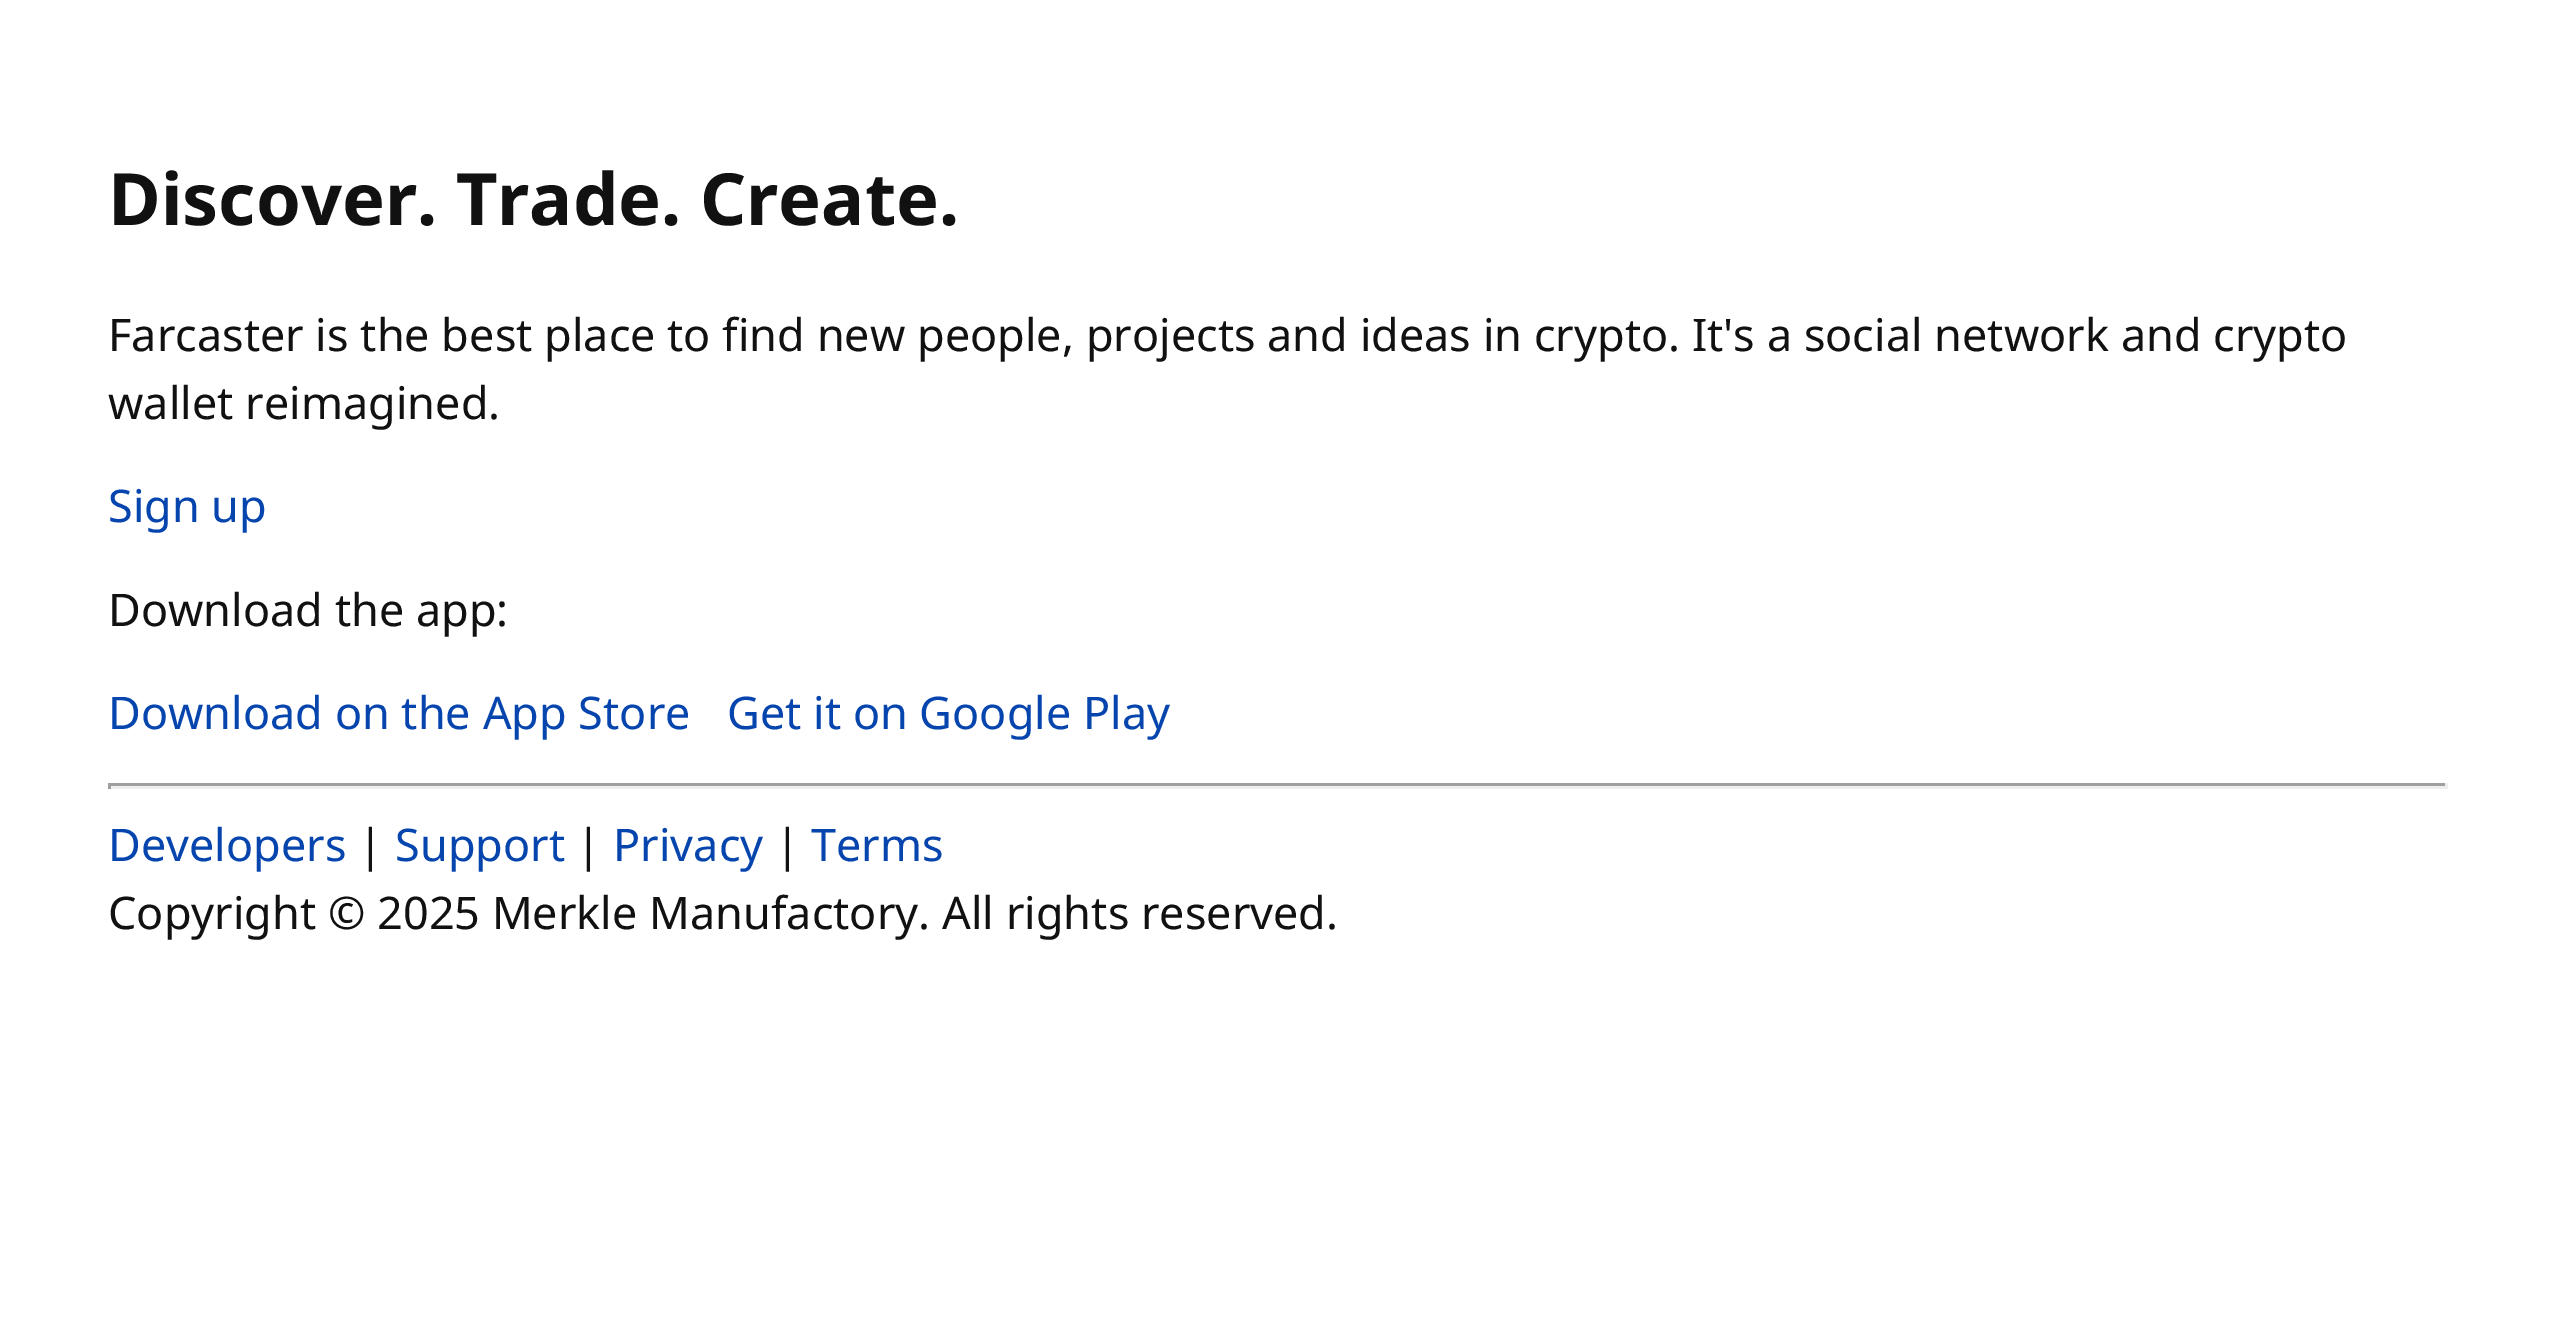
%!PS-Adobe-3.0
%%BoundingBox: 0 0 2555 1338
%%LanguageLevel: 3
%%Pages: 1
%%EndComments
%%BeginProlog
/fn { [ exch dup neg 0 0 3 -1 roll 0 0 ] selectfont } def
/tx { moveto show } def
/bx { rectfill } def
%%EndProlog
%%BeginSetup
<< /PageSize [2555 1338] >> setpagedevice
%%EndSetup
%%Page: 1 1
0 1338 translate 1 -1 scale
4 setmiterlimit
1 setgray
0 0 2555 1338 bx
/NotoSans-Bold 72 fn
0.067 setgray
(Discover. Trade. Create.) 108 225 tx
/NotoSans-Regular 45 fn
(Farcaster is the best place to find new people, projects and ideas in crypto. It's a social network and crypto) 108 351 tx
(wallet reimagined.) 108 419 tx
0.024 0.271 0.678 setrgbcolor
(Sign up) 108 522 tx
0.067 setgray
(Download the app:) 108 626 tx
0.024 0.271 0.678 setrgbcolor
(Download on the App Store) 108 729 tx
(Get it on Google Play) 727 729 tx
0.624 setgray
108 783 2340 3 bx
0.933 setgray
2445 783 3 6 bx
108 786 2340 3 bx
0.624 setgray
108 783 3 6 bx
0.024 0.271 0.678 setrgbcolor
(Developers) 108 861 tx
0.067 setgray
(|) 358 861 tx
0.024 0.271 0.678 setrgbcolor
(Support) 395 861 tx
0.067 setgray
(|) 576 861 tx
0.024 0.271 0.678 setrgbcolor
(Privacy) 613 861 tx
0.067 setgray
(|) 775 861 tx
0.024 0.271 0.678 setrgbcolor
(Terms) 811 861 tx
0.067 setgray
(Copyright © 2025 Merkle Manufactory. All rights reserved.) 108 929 tx
showpage
%%EOF
